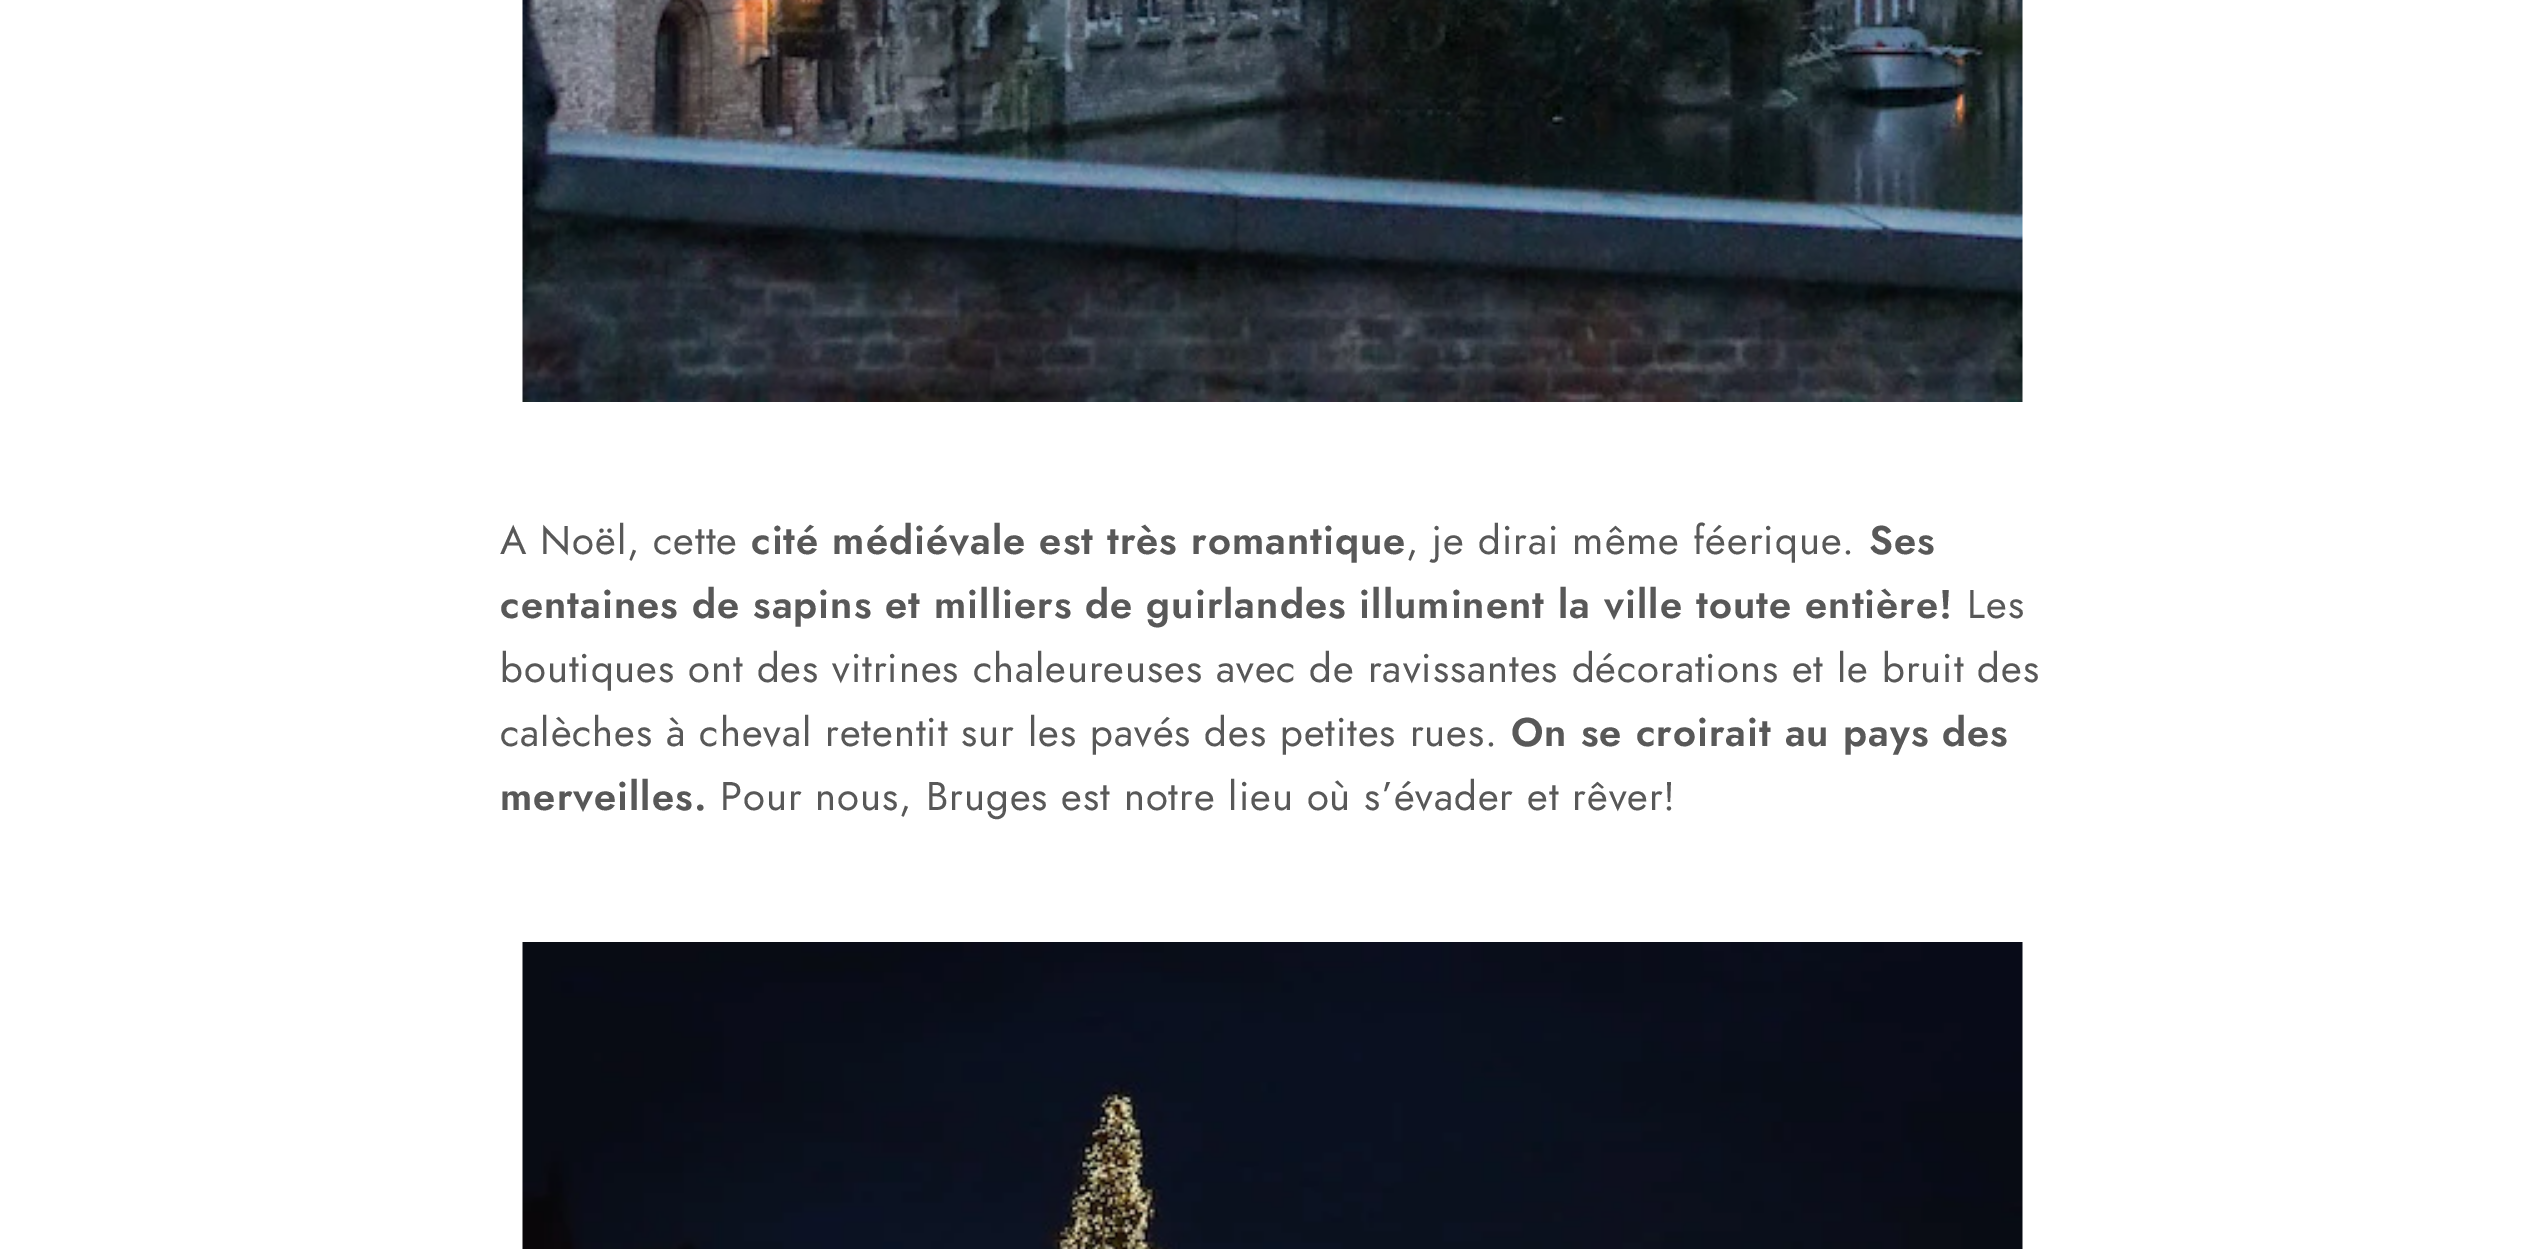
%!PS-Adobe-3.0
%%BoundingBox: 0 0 2544 1249
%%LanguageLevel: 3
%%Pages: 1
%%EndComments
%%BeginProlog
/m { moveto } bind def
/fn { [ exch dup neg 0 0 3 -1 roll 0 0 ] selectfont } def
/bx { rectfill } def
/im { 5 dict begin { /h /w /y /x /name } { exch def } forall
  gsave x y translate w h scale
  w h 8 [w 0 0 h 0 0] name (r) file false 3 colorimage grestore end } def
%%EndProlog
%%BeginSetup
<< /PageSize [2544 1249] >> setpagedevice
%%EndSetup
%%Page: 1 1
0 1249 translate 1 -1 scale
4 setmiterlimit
1 setgray
0 0 2544 1249 bx
(image0.raw) 522 0 1501 402 im
/Jost-Regular 40 fn
0.345 setgray
500 554 m 1 0 (A Noël, cette) ashow
/Jost-SemiBold 40 fn
751 554 m 1 0 (cité médiévale est très romantique) ashow
/Jost-Regular 40 fn
1406 554 m 1 0 (, je dirai même féerique.) ashow
/Jost-SemiBold 40 fn
1869 554 m 1 0 (Ses) ashow
500 618 m 1 0 (centaines de sapins et milliers de guirlandes illuminent la ville toute entière!) ashow
/Jost-Regular 40 fn
1967 618 m 1 0 (Les) ashow
500 682 m 1 0 (boutiques ont des vitrines chaleureuses avec de ravissantes décorations et le bruit des) ashow
500 746 m 1 0 (calèches à cheval retentit sur les pavés des petites rues.) ashow
/Jost-SemiBold 40 fn
1511 746 m 1 0 (On se croirait au pays des) ashow
500 810 m 1 0 (merveilles.) ashow
/Jost-Regular 40 fn
720 810 m 1 0 (Pour nous, Bruges est notre lieu où s’évader et rêver!) ashow
(image1.raw) 522 942 1501 307 im
showpage
%%EOF
